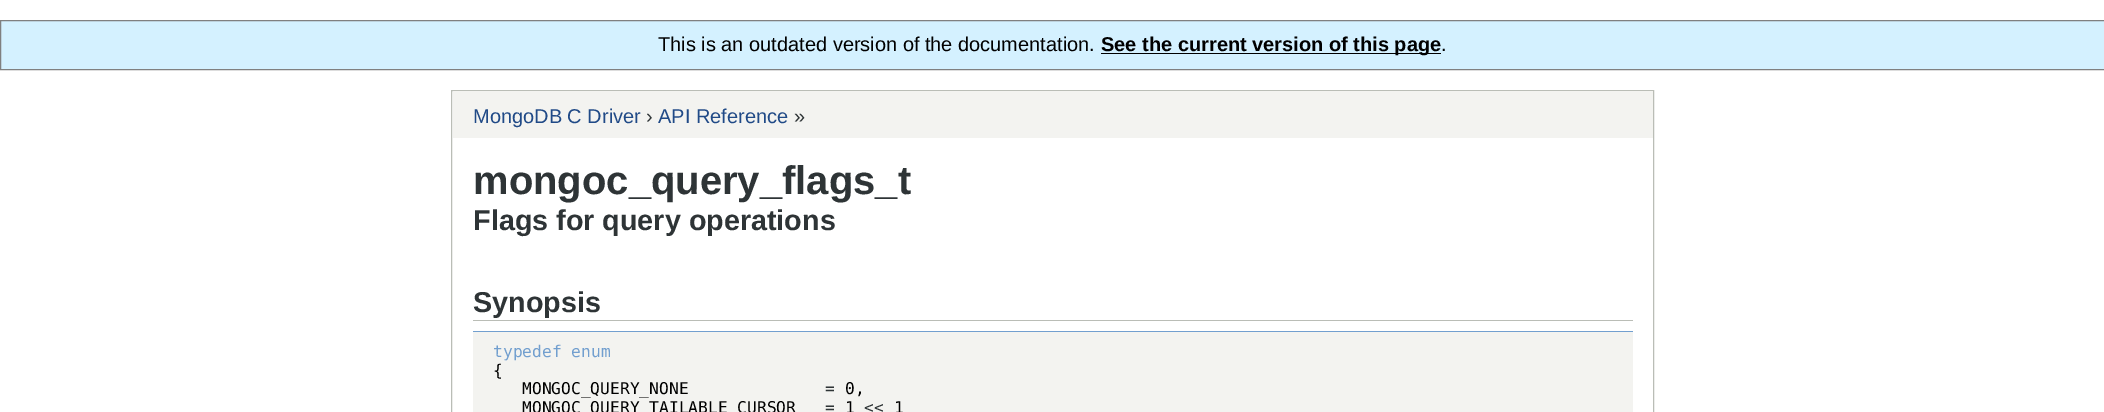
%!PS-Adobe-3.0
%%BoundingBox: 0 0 2104 412
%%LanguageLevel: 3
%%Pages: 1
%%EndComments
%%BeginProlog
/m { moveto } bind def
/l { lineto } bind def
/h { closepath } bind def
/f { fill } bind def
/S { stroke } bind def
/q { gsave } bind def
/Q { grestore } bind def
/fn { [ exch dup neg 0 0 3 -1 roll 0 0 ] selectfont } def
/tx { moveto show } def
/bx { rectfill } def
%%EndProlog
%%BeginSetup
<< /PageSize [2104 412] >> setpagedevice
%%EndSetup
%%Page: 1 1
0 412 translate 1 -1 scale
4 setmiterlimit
1 setgray
0 0 2104 412 bx
0.831 0.945 1 setrgbcolor
0.5 20.5 m 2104.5 20.5 l 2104.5 69.5 l 0.5 69.5 l h q f Q
0.502 setgray
S
/LiberationSans-Regular 20 fn
0 setgray
(This is an outdated version of the documentation.) 658 51 tx
1101 53 340 1 bx
/LiberationSans-Bold 20 fn
(See the current version of this page) 1101 51 tx
/LiberationSans-Regular 20 fn
(.) 1441 51 tx
0.729 0.741 0.714 setrgbcolor
451.5 90.5 1202 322 rectstroke
0.953 0.953 0.941 setrgbcolor
453 91 1200 47 bx
0.125 0.29 0.529 setrgbcolor
(MongoDB C Driver) 473 123 tx
0.18 0.204 0.212 setrgbcolor
(›) 646 123 tx
0.125 0.29 0.529 setrgbcolor
(API Reference) 658 123 tx
0.18 0.204 0.212 setrgbcolor
(») 794 123 tx
/LiberationSans-Bold 40 fn
(mongoc_query_flags_t) 473 194 tx
/LiberationSans-Bold 28.75 fn
(Flags for query operations) 473 230 tx
0.729 0.741 0.714 setrgbcolor
473 320 1160 1 bx
0.18 0.204 0.212 setrgbcolor
(Synopsis) 473 312 tx
0.953 0.953 0.941 setrgbcolor
473 332 1160 80 bx
0.447 0.624 0.812 setrgbcolor
473 331 1160 1 bx
/DejaVuSansMono-Regular 16.25 fn
(typedef enum) 493 357 tx
0 setgray
({) 493 376 tx
(MONGOC_QUERY_NONE) 522 394 tx
0.18 0.204 0.212 setrgbcolor
(=) 825 394 tx
0 setgray
(0,) 845 394 tx
(MONGOC_QUERY_TAILABLE_CURSOR) 522 413 tx
0.18 0.204 0.212 setrgbcolor
(=) 825 413 tx
0 setgray
(1) 845 413 tx
0.18 0.204 0.212 setrgbcolor
(<<) 864 413 tx
0 setgray
(1) 894 413 tx
showpage
%%EOF
